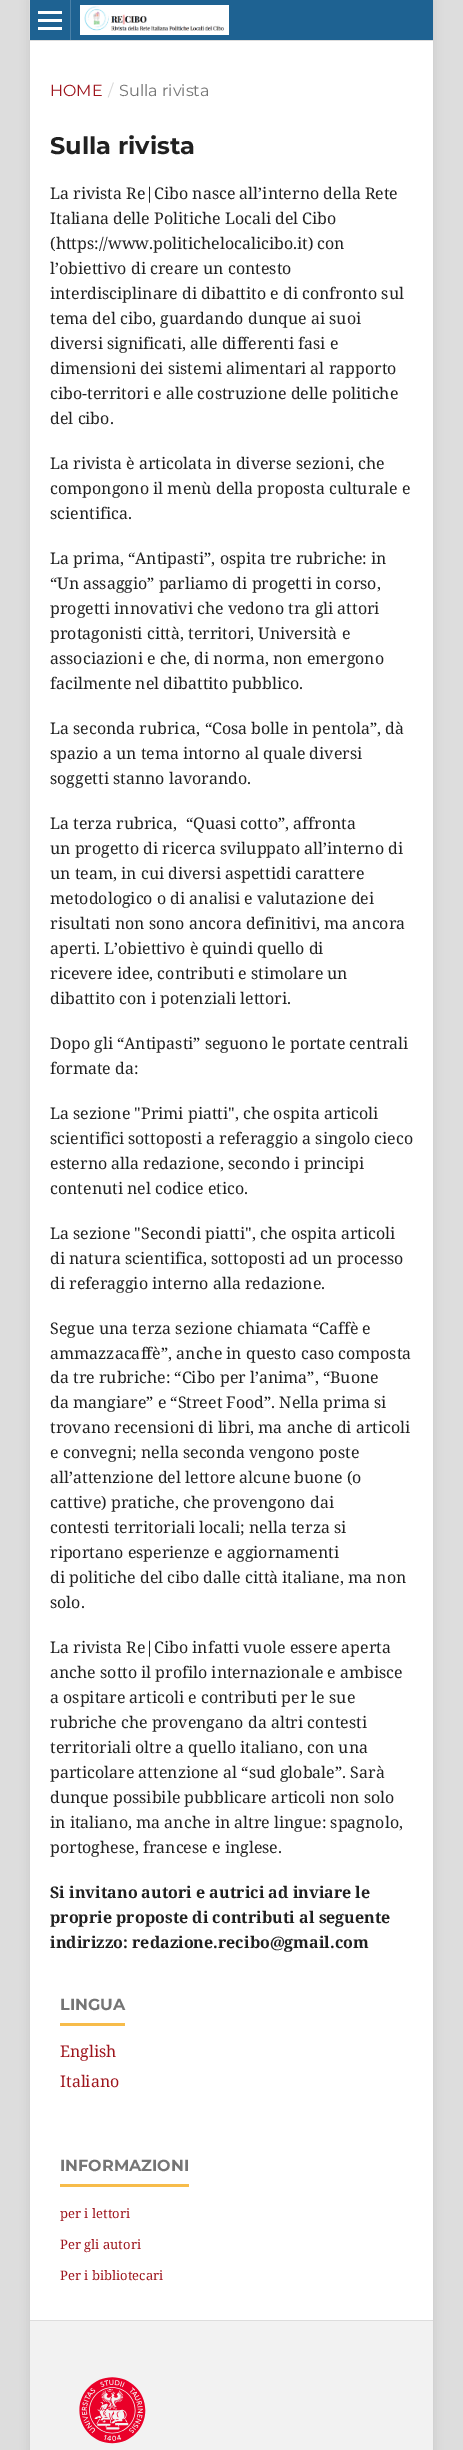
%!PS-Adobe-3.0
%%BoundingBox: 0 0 463 2450
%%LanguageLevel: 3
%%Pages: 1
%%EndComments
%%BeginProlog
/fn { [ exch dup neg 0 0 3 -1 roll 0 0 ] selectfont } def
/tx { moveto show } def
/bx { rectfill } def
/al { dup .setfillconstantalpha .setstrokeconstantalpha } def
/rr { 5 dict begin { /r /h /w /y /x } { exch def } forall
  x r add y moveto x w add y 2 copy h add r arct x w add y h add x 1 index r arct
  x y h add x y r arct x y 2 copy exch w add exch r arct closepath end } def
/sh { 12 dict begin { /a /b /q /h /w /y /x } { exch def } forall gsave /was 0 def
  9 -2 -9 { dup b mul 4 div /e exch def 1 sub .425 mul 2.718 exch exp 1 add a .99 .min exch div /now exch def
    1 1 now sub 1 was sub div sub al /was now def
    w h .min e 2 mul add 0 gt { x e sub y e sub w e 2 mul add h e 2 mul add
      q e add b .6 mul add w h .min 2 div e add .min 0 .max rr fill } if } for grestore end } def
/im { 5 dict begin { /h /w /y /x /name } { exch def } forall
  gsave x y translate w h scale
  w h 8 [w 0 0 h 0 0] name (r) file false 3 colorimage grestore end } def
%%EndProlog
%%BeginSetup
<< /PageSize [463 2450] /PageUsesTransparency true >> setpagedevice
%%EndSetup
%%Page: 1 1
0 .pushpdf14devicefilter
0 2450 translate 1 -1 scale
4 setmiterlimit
0.867 setgray
0 0 463 2450 bx
0 setgray
30 0 403 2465 0 5 0.1 sh
1 setgray
30 41 403 2279 bx
0.118 0.384 0.573 setrgbcolor
30 0 403 40 bx
0.867 setgray
30 40 403 1 bx
0.2 al
1 setgray
29 0 1 40 bx
1 al
0.294 0.506 0.659 setrgbcolor
70 0 1 40 bx
1 setgray
38 27 24 3 bx
38 11 24 3 bx
38 19 24 3 bx
(image0.raw) 80 5 149 30 im
/Montserrat-Regular 16 fn
0.62 0.082 0.114 setrgbcolor
(HOME) 50 96 tx
0.839 setgray
(/) 108 96 tx
0.459 setgray
(Sulla rivista) 119 96 tx
/Montserrat-Bold 24 fn
0.129 setgray
(Sulla rivista) 50 154 tx
/NotoSerif-Regular 16 fn
(La rivista Re|Cibo nasce all’interno della Rete) 50 199 tx
(Italiana delle Politiche Locali del Cibo) 50 224 tx
(\(https://www.politichelocalicibo.it\) con) 50 249 tx
(l’obiettivo di creare un contesto) 50 274 tx
(interdisciplinare di dibattito e di confronto sul) 50 299 tx
(tema del cibo, guardando dunque ai suoi) 50 324 tx
(diversi significati, alle differenti fasi e) 50 349 tx
(dimensioni dei sistemi alimentari al rapporto) 50 374 tx
(cibo-territori e alle costruzione delle politiche) 50 399 tx
(del cibo.) 50 424 tx
(La rivista è articolata in diverse sezioni, che) 50 469 tx
(compongono il menù della proposta culturale e) 50 494 tx
(scientifica.) 50 519 tx
(La prima, “Antipasti”, ospita tre rubriche: in) 50 564 tx
(“Un assaggio” parliamo di progetti in corso,) 50 589 tx
(progetti innovativi che vedono tra gli attori) 50 614 tx
(protagonisti città, territori, Università e) 50 639 tx
(associazioni e che, di norma, non emergono) 50 664 tx
(facilmente nel dibattito pubblico.) 50 689 tx
(La seconda rubrica, “Cosa bolle in pentola”, dà) 50 734 tx
(spazio a un tema intorno al quale diversi) 50 759 tx
(soggetti stanno lavorando.) 50 784 tx
(La terza rubrica,  “Quasi cotto”, affronta) 50 829 tx
(un progetto di ricerca sviluppato all’interno di) 50 854 tx
(un team, in cui diversi aspettidi carattere) 50 879 tx
(metodologico o di analisi e valutazione dei) 50 904 tx
(risultati non sono ancora definitivi, ma ancora) 50 929 tx
(aperti. L’obiettivo è quindi quello di) 50 954 tx
(ricevere idee, contributi e stimolare un) 50 979 tx
(dibattito con i potenziali lettori.) 50 1004 tx
(Dopo gli “Antipasti” seguono le portate centrali) 50 1049 tx
(formate da:) 50 1074 tx
(La sezione "Primi piatti", che ospita articoli) 50 1119 tx
(scientifici sottoposti a referaggio a singolo cieco) 50 1144 tx
(esterno alla redazione, secondo i principi) 50 1169 tx
(contenuti nel codice etico.) 50 1194 tx
(La sezione "Secondi piatti", che ospita articoli) 50 1239 tx
(di natura scientifica, sottoposti ad un processo) 50 1264 tx
(di referaggio interno alla redazione.) 50 1289 tx
(Segue una terza sezione chiamata “Caffè e) 50 1334 tx
(ammazzacaffè”, anche in questo caso composta) 50 1359 tx
(da tre rubriche: “Cibo per l’anima”, “Buone) 50 1383 tx
(da mangiare” e “Street Food”. Nella prima si) 50 1408 tx
(trovano recensioni di libri, ma anche di articoli) 50 1433 tx
(e convegni; nella seconda vengono poste) 50 1458 tx
(all’attenzione del lettore alcune buone \(o) 50 1483 tx
(cattive\) pratiche, che provengono dai) 50 1508 tx
(contesti territoriali locali; nella terza si) 50 1533 tx
(riportano esperienze e aggiornamenti) 50 1558 tx
(di politiche del cibo dalle città italiane, ma non) 50 1583 tx
(solo.) 50 1608 tx
(La rivista Re|Cibo infatti vuole essere aperta) 50 1653 tx
(anche sotto il profilo internazionale e ambisce) 50 1678 tx
(a ospitare articoli e contributi per le sue) 50 1703 tx
(rubriche che provengano da altri contesti) 50 1728 tx
(territoriali oltre a quello italiano, con una) 50 1753 tx
(particolare attenzione al “sud globale”. Sarà) 50 1778 tx
(dunque possibile pubblicare articoli non solo) 50 1803 tx
(in italiano, ma anche in altre lingue: spagnolo,) 50 1828 tx
(portoghese, francese e inglese.) 50 1853 tx
/NotoSerif-Bold 16 fn
(Si invitano autori e autrici ad inviare le) 50 1898 tx
(proprie proposte di contributi al seguente) 50 1923 tx
(indirizzo: redazione.recibo@gmail.com) 50 1948 tx
0.969 0.737 0.29 setrgbcolor
60 2023 65 3 bx
/Montserrat-Bold 16 fn
0.459 setgray
(LINGUA) 60 2010 tx
/NotoSerif-Regular 16 fn
0.62 0.082 0.114 setrgbcolor
(English) 60 2057 tx
(Italiano) 60 2087 tx
0.969 0.737 0.29 setrgbcolor
60 2184 129 3 bx
/Montserrat-Bold 16 fn
0.459 setgray
(INFORMAZIONI) 60 2171 tx
/NotoSerif-Regular 13 fn
0.62 0.082 0.114 setrgbcolor
(per i lettori) 60 2218 tx
(Per gli autori) 60 2249 tx
(Per i bibliotecari) 60 2280 tx
0.949 setgray
30 2321 403 129 bx
0.867 setgray
30 2320 403 1 bx
(image1.raw) 79 2377 67 67 im
.poppdf14devicefilter showpage
%%EOF
